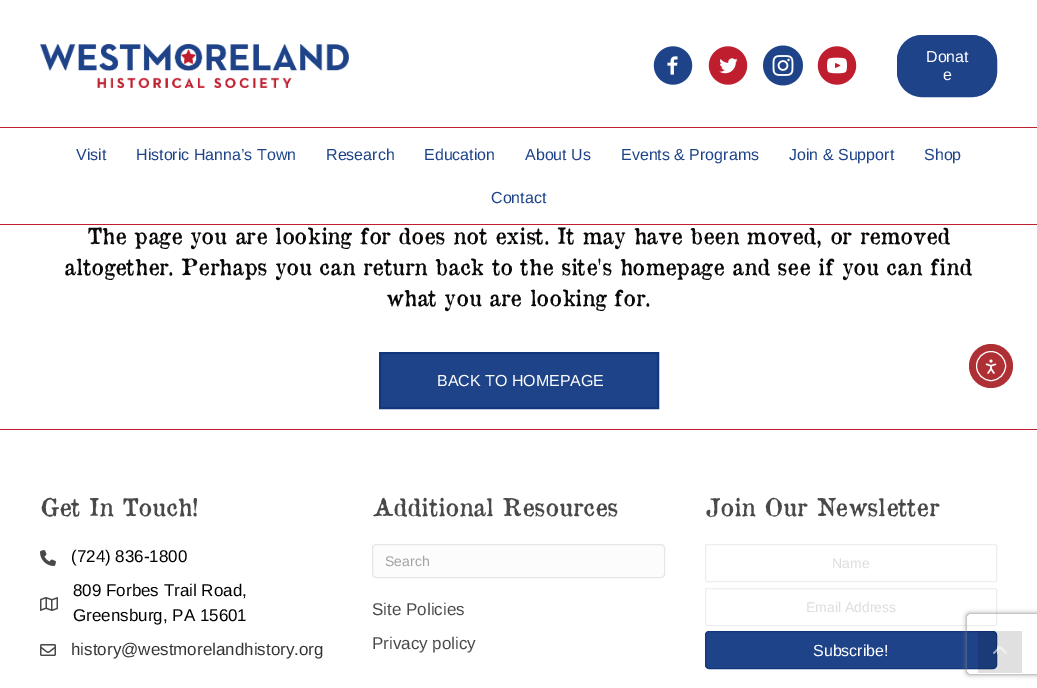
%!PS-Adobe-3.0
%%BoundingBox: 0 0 1037 688
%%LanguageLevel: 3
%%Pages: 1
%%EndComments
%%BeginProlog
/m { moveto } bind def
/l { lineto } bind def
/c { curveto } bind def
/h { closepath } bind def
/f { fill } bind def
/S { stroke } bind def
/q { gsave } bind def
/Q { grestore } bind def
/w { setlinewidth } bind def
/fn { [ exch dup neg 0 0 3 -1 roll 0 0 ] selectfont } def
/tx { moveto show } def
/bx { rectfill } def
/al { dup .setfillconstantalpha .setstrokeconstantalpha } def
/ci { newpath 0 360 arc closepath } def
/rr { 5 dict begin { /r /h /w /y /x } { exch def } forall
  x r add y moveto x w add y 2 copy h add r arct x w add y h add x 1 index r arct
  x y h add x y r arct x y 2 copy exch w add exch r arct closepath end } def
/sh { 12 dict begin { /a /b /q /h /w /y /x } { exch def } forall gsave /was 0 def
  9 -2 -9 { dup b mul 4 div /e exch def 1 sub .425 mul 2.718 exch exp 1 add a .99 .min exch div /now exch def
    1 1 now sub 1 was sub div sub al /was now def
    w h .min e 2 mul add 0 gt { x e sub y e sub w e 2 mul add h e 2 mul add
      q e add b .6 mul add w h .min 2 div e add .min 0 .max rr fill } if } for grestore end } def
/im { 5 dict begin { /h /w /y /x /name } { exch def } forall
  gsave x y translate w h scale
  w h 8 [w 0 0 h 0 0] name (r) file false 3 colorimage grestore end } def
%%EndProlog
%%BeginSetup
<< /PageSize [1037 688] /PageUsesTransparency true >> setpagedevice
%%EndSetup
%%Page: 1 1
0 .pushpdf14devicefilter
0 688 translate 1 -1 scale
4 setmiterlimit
1 setgray
0 0 1037 688 bx
(image0.raw) 40 44 309 44 im
(image1.raw) 653 46 40 39 im
(image2.raw) 708 46 40 39 im
(image3.raw) 763 45 40 41 im
(image4.raw) 817 46 40 39 im
0.118 0.263 0.537 setrgbcolor
897.5 35.5 99 61 24.5 rr q f Q
S
/LiberationSans-Regular 16 fn
1 setgray
(Donat) 926 62 tx
(e) 943 80 tx
0.749 0.118 0.18 setrgbcolor
0 127 1037 1 bx
0 224 1037 1 bx
0.118 0.263 0.537 setrgbcolor
(Visit) 76 160 tx
(Historic Hanna’s Town) 136 160 tx
(Research) 326 160 tx
(Education) 424 160 tx
(About Us) 525 160 tx
(Events & Programs) 621 160 tx
(Join & Support) 789 160 tx
(Shop) 924 160 tx
(Contact) 491 203 tx
/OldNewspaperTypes-Medium 22 fn
0.039 setgray
(The page you are looking for does not exist. It may have been moved, or removed) 87 244 tx
(altogether. Perhaps you can return back to the site's homepage and see if you can find) 64 275 tx
(what you are looking for.) 386 306 tx
0.118 0.263 0.537 setrgbcolor
380 353 m 658 353 l 658 408 l 380 408 l h q f Q
0.071 0.216 0.49 setrgbcolor
2 w
S
/LiberationSans-Regular 16 fn
1 setgray
(BACK TO HOMEPAGE) 437 386 tx
0.749 0.118 0.18 setrgbcolor
0 429 1037 1 bx
/OldNewspaperTypes-Medium 24 fn
0.286 setgray
(Get In Touch!) 40 516 tx
(image5.raw) 40 550 16 16 im
/LiberationSans-Regular 17 fn
0 setgray
(\(724\) 836-1800) 71 562 tx
(image6.raw) 40 597 18 14 im
(809 Forbes Trail Road,) 73 596 tx
(Greensburg, PA 15601) 73 621 tx
(image7.raw) 40 644 16 12 im
0.2 setgray
(history@westmorelandhistory.org) 71 655 tx
/OldNewspaperTypes-Medium 24 fn
0.286 setgray
(Additional Resources) 372 516 tx
0.988 setgray
372.5 544.5 292 33 3.5 rr q f Q
0.902 setgray
1 w
S
/LiberationSans-Regular 14 fn
0.635 setgray
(Search) 385 566 tx
/LiberationSans-Regular 17 fn
0.286 setgray
(Site Policies) 372 615 tx
(Privacy policy) 372 649 tx
/OldNewspaperTypes-Medium 24 fn
(Join Our Newsletter) 705 516 tx
0.933 setgray
705.5 544.5 291 37 1.5 rr S
/LiberationSans-Regular 14 fn
0.867 setgray
(Name) 832 568 tx
0.933 setgray
705.5 588.5 291 37 1.5 rr S
0.867 setgray
(Email Address) 806 612 tx
0.118 0.263 0.537 setrgbcolor
705.5 631.5 291 37 3.5 rr q f Q
0.071 0.216 0.49 setrgbcolor
S
/LiberationSans-Regular 16 fn
1 setgray
(Subscribe!) 813 656 tx
0.686 0.188 0.204 setrgbcolor
991 366 22 ci f
1 setgray
991 366 14.5 ci S
(image8.raw) 985 359 12 15 im
q
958 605 m 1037 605 l 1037 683 l 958 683 l h 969 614 m 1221 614 l 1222 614 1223 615 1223 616 c 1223 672 l 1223 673 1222 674 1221 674 c 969 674 l 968 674 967 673 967 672 c 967 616 l 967 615 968 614 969 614 c h eoclip newpath
0.502 setgray
967 614 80 60 2 2.5 1 sh
Q
0.12 al
0 setgray
978 631 44 42 bx
1 al
(image9.raw) 993 646 14 8 im
.poppdf14devicefilter showpage
%%EOF
